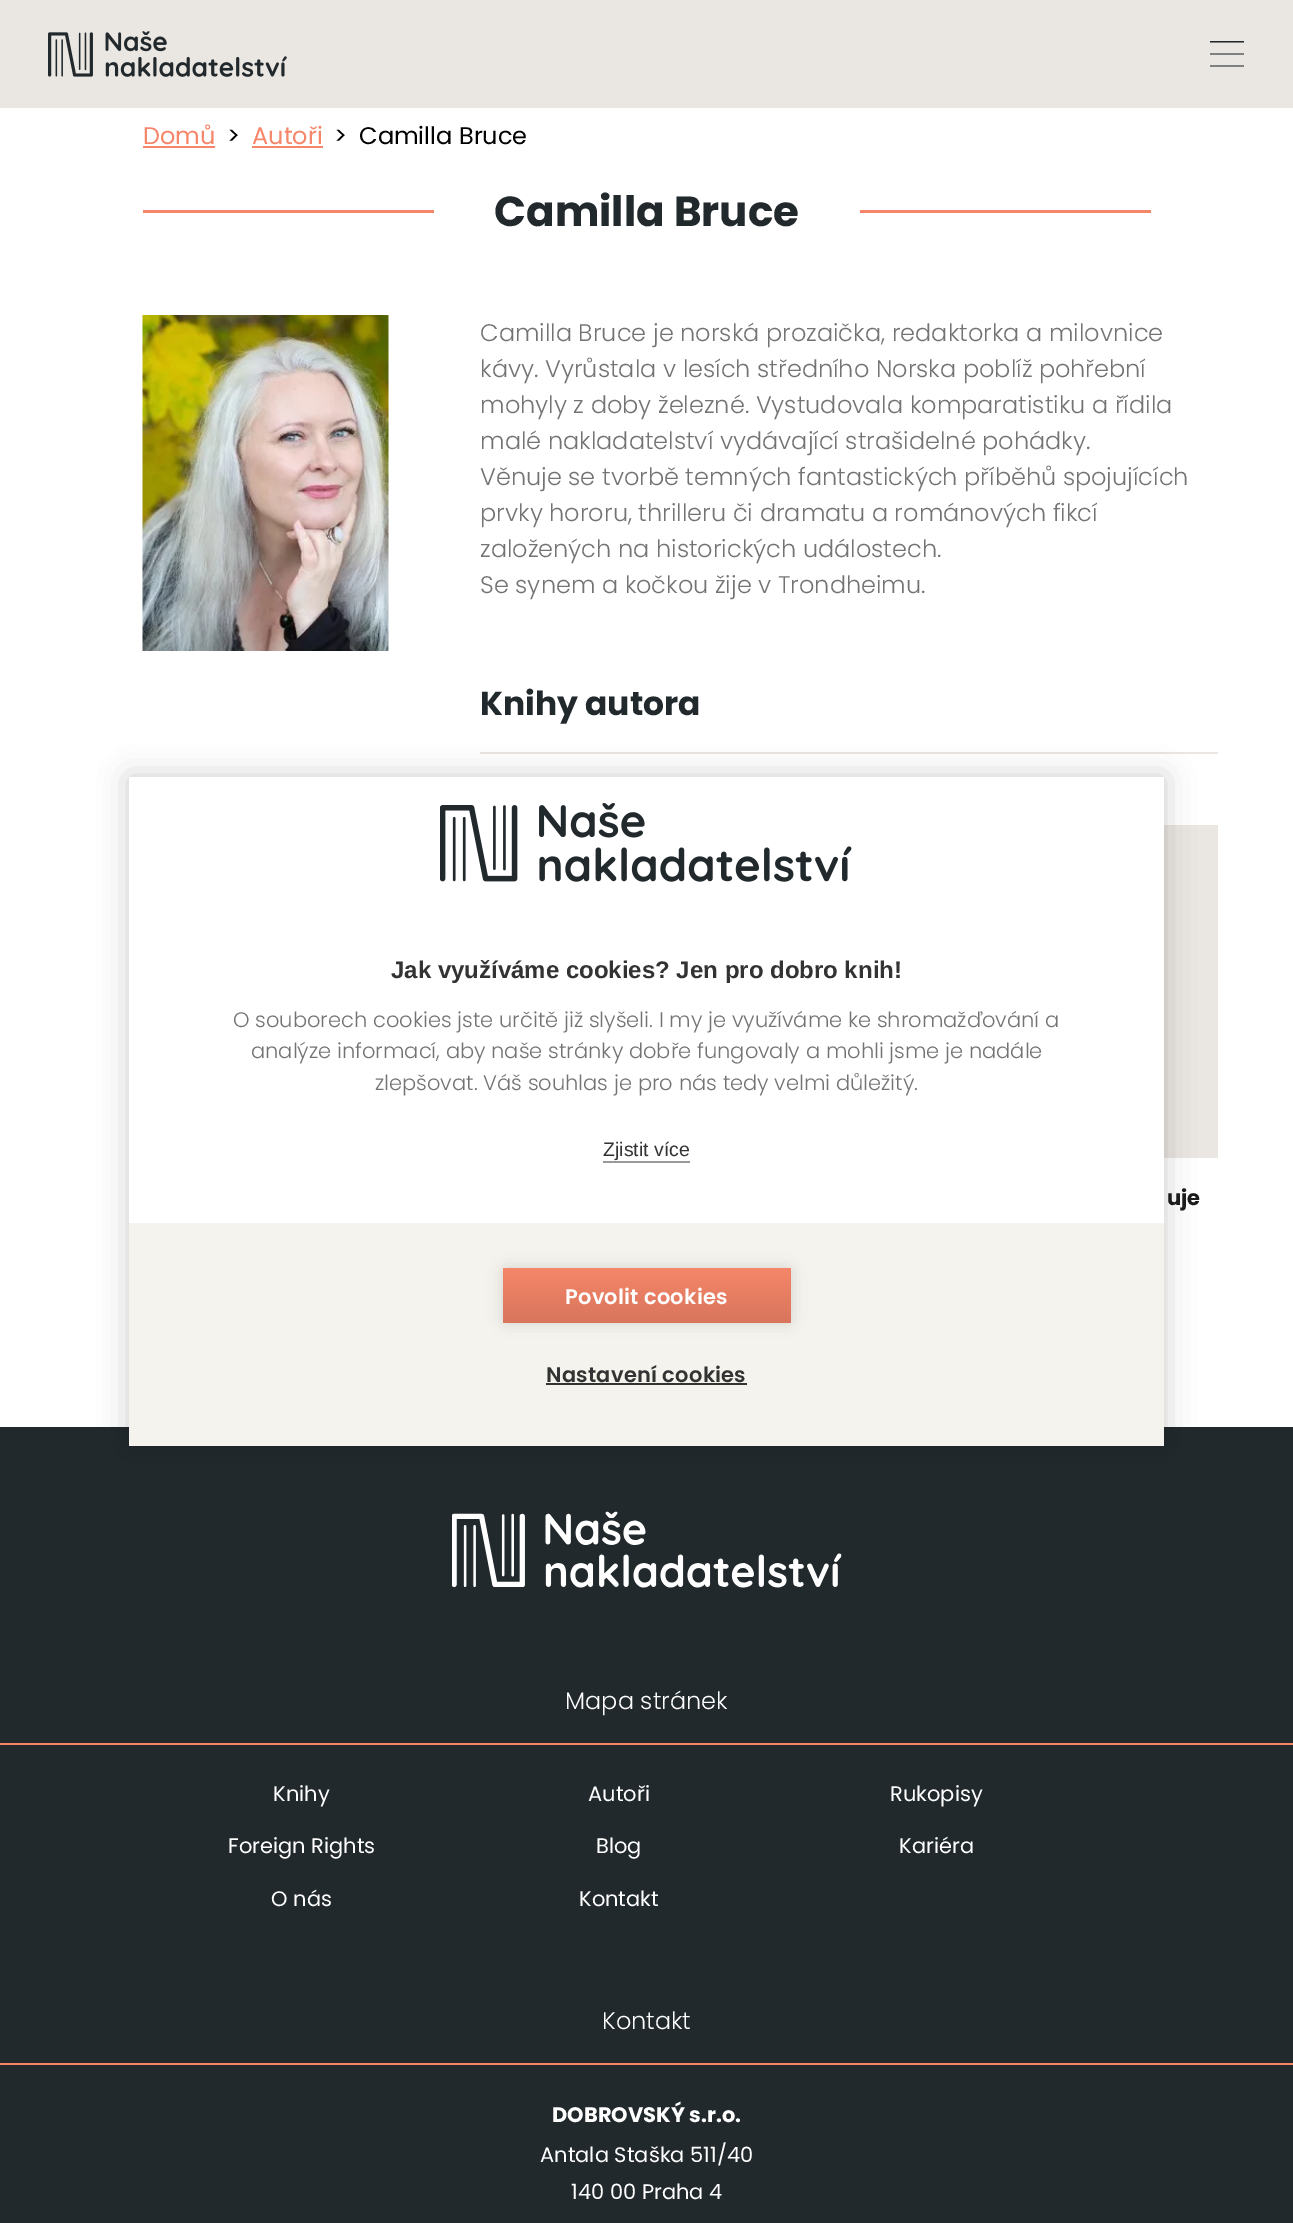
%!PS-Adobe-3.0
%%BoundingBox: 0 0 1293 2223
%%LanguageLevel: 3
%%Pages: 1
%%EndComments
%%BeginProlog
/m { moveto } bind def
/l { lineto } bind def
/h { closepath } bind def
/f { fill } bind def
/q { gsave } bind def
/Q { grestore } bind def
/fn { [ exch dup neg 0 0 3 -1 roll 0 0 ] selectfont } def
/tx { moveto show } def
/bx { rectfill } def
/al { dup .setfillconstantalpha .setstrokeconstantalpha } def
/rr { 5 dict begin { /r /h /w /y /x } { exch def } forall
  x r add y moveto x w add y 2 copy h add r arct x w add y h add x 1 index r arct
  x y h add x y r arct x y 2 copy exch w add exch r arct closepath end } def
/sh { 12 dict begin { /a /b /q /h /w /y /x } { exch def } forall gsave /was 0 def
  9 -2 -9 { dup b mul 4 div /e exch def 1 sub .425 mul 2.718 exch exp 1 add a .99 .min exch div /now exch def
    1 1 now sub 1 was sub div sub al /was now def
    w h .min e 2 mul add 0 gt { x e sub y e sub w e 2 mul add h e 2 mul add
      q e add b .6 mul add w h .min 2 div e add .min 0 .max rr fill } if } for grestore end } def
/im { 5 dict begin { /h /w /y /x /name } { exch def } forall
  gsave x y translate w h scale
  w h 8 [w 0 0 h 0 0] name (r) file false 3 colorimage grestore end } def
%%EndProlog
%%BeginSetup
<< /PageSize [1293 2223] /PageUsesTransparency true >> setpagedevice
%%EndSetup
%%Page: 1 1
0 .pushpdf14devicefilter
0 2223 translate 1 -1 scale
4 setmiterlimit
1 setgray
0 0 1293 2223 bx
0.918 0.902 0.882 setrgbcolor
0 0 1293 108 bx
(image0.raw) 48 31 239 46 im
0.133 0.161 0.176 setrgbcolor
1210 65.5 m 1244 65.5 l 1244 66.5 l 1210 66.5 l h 1210 53.5 m 1244 53.5 l 1244 54.5 l 1210 54.5 l h 1210 41 m 1244 41 l 1244 42.5 l 1210 42.5 l h f
/Poppins-Regular 24 fn
0.961 0.525 0.412 setrgbcolor
(Domů) 143 144 tx
143 146 72 2 bx
0 setgray
(>) 227 144 tx
0.961 0.525 0.412 setrgbcolor
(Autoři) 252 144 tx
252 146 71 2 bx
0 setgray
(>) 334 144 tx
(Camilla Bruce) 359 144 tx
0.961 0.525 0.412 setrgbcolor
143 210 291 3 bx
/Poppins-Bold 42 fn
0.133 0.161 0.176 setrgbcolor
(Camilla Bruce) 494 226 tx
0.961 0.525 0.412 setrgbcolor
860 210 291 3 bx
(image1.raw) 142 315 247 336 im
/Poppins-Light 24 fn
0.451 setgray
(Camilla Bruce je norská prozaička, redaktorka a milovnice) 480 341 tx
(kávy. Vyrůstala v lesích středního Norska poblíž pohřební) 480 377 tx
(mohyly z doby železné. Vystudovala komparatistiku a řídila) 480 413 tx
(malé nakladatelství vydávající strašidelné pohádky.) 480 449 tx
(Věnuje se tvorbě temných fantastických příběhů spojujících) 480 485 tx
(prvky hororu, thrilleru či dramatu a románových fikcí) 480 521 tx
(založených na historických událostech.) 480 557 tx
(Se synem a kočkou žije v Trondheimu.) 480 593 tx
0.918 0.902 0.882 setrgbcolor
480 752 738 2 bx
/Poppins-Bold 33 fn
0.133 0.161 0.176 setrgbcolor
(Knihy autora) 480 715 tx
0.918 0.902 0.882 setrgbcolor
1164 825 54 333 bx
/Poppins-Bold 21 fn
0.11 setgray
(uje) 1167 1205 tx
0.133 0.161 0.176 setrgbcolor
0 1427 1293 796 bx
0 setgray
129 777 1035 669 0 15 0.2 sh
1 setgray
129 777 1035 446 bx
(image2.raw) 440 803 412 79 im
/LiberationSans-Bold 24 fn
0.2 setgray
(Jak využíváme cookies? Jen pro dobro knih!) 391 978 tx
/Poppins-Light 21 fn
0.451 setgray
(O souborech cookies jste určitě již slyšeli. I my je využíváme ke shromažďování a) 233 1027 tx
(analýze informací, aby naše stránky dobře fungovaly a mohli jsme je nadále) 251 1058 tx
(zlepšovat. Váš souhlas je pro nás tedy velmi důležitý.) 375 1090 tx
/LiberationSans-Regular 19.5 fn
0.2 setgray
(Zjistit více) 603 1156 tx
0.6 setgray
603 1161 87 2 bx
0.957 0.953 0.929 setrgbcolor
129 1223 1035 223 bx
0 setgray
503 1268 288 55 3 7.5 0.12 sh
q 503 1268 288 55 3 rr clip newpath
<< /ShadingType 2 /ColorSpace /DeviceRGB /Coords [647 1268 647 1323] /Extend [true true] /Function << /FunctionType 2 /Domain [0 1] /C0 [0.961 0.525 0.412] /C1 [0.847 0.459 0.361] /N 1 >> >> shfill Q
/Poppins-SemiBold 21 fn
1 setgray
565 1304 m 0.25 0 (Povolit cookies) ashow
0.2 setgray
546 1382 m 0.25 0 (Nastavení cookies) ashow
546 1383 201 2 bx
(image3.raw) 452 1511 390 77 im
/Poppins-Light 24 fn
1 setgray
(Mapa stránek) 565 1709 tx
0.961 0.525 0.412 setrgbcolor
0 1743 1293 2 bx
/Poppins-Regular 21 fn
1 setgray
(Knihy) 273 1801 tx
(Autoři) 588 1801 tx
(Rukopisy) 890 1801 tx
(Foreign Rights) 228 1853 tx
(Blog) 596 1853 tx
(Kariéra) 899 1853 tx
(O nás) 271 1906 tx
(Kontakt) 579 1906 tx
/Poppins-Light 24 fn
(Kontakt) 602 2029 tx
0.961 0.525 0.412 setrgbcolor
0 2063 1293 2 bx
/Poppins-Bold 21 fn
1 setgray
(DOBROVSKÝ s.r.o.) 552 2122 tx
/Poppins-Regular 21 fn
(Antala Staška 511/40) 540 2162 tx
(140 00 Praha 4) 571 2199 tx
.poppdf14devicefilter showpage
%%EOF
